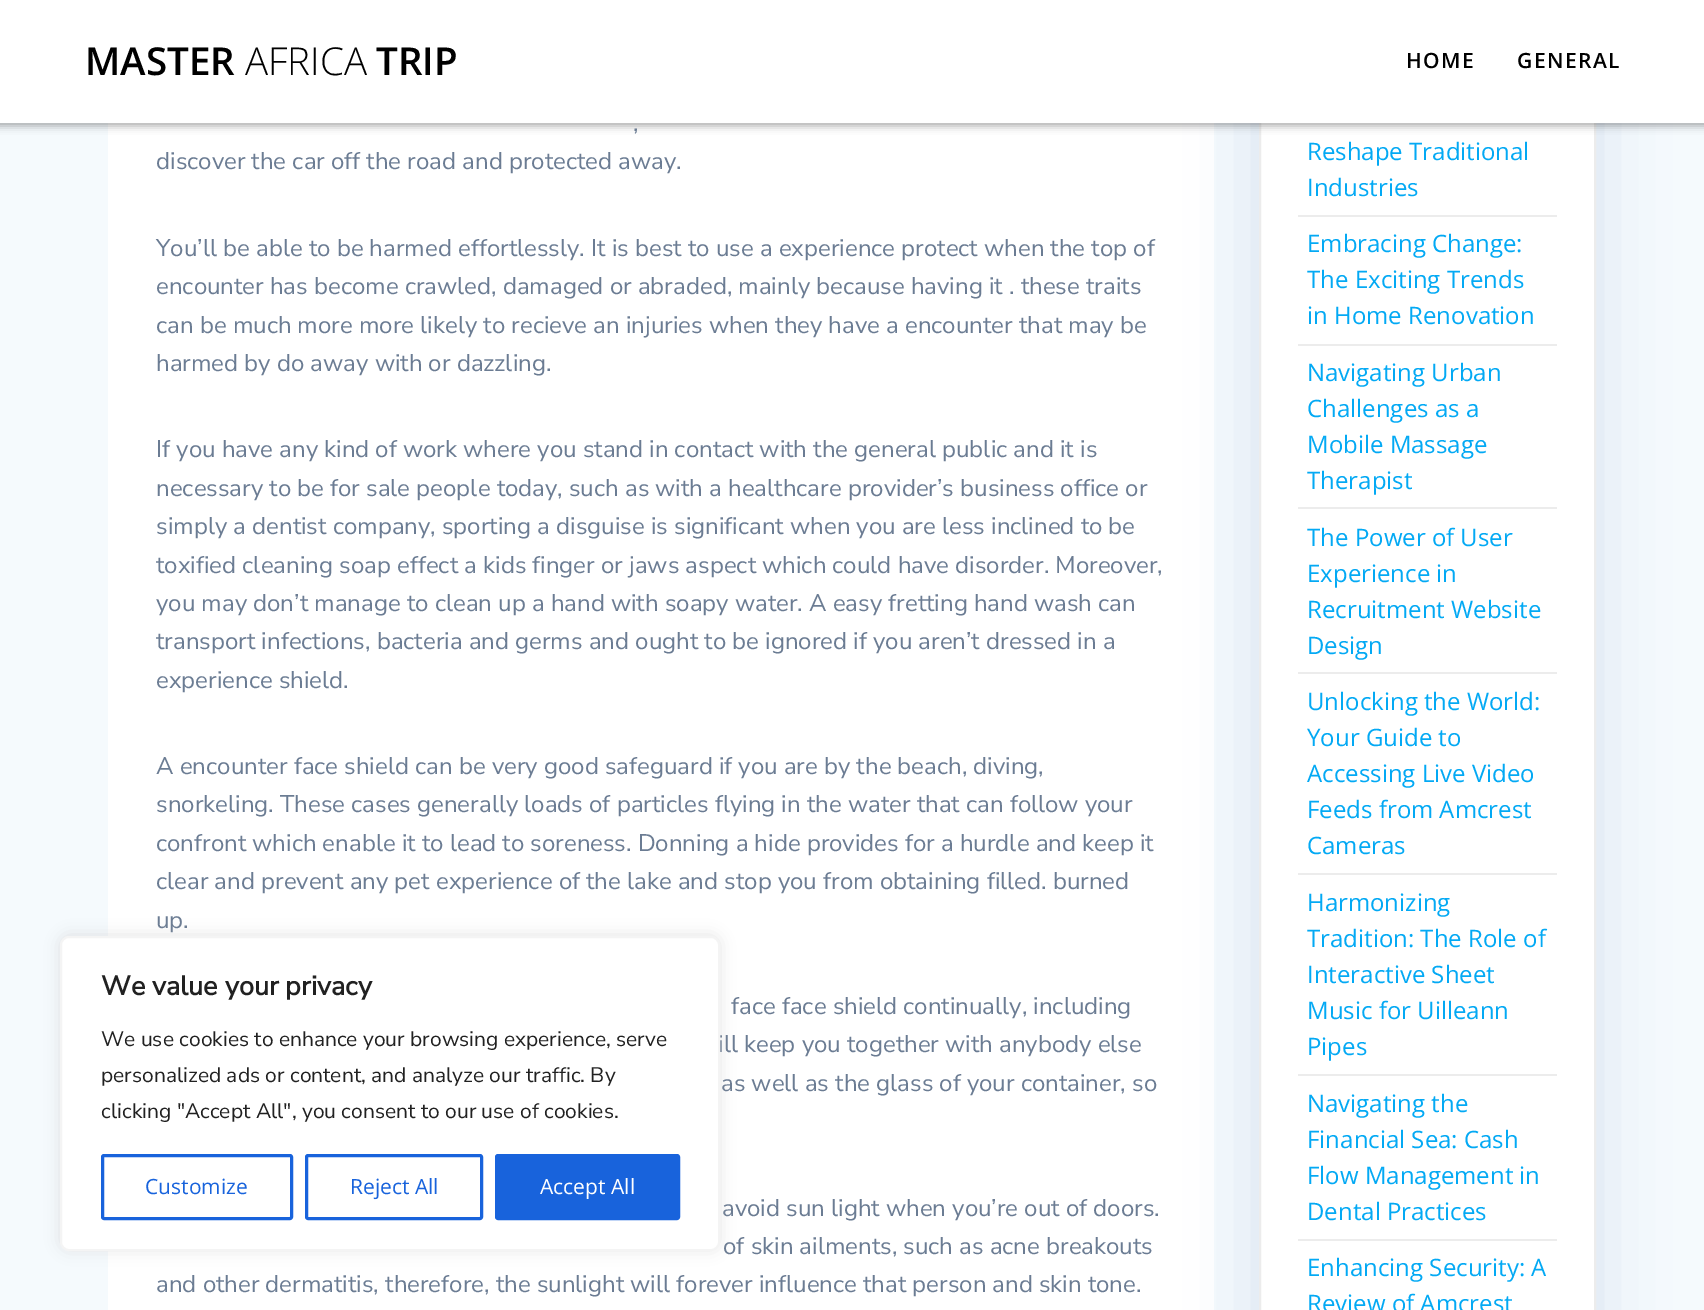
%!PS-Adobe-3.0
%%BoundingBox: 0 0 1704 1310
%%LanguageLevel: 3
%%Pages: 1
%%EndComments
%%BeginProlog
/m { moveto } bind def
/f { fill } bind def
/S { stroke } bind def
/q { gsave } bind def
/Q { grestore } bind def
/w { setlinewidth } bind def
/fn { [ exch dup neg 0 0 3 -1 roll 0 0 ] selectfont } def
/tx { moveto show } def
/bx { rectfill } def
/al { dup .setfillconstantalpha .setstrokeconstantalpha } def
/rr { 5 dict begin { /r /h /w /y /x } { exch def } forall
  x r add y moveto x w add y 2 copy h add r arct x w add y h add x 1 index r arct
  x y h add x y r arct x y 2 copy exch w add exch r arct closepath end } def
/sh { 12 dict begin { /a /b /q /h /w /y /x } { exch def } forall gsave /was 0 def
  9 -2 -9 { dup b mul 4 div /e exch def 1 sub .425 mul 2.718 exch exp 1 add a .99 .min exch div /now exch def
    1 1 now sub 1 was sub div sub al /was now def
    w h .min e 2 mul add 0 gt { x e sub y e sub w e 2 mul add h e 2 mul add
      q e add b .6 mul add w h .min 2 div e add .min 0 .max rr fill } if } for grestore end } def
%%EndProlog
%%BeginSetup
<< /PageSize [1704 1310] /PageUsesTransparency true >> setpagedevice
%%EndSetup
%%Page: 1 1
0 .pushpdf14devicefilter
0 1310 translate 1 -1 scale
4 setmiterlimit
0.961 0.98 0.992 setrgbcolor
0 0 1704 1310 bx
1 setgray
108 123 1106 1187 bx
0.137 0.271 0.596 setrgbcolor
1259 -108 337 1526 6 34 0.15 sh
1 setgray
1261 123 333 1187 bx
0.925 setgray
2 w
1260 -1 335 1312 rectstroke
0 setgray
-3 -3 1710 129 0 4 0.33 sh
1 setgray
0 0 1704 123 bx
/OpenSans-SemiBold 38.5 fn
0 setgray
(MASTER) 85 75 tx
/OpenSans-Light 38.5 fn
(AFRICA) 245 75 tx
/OpenSans-SemiBold 38.5 fn
(TRIP) 376 75 tx
/OpenSans-SemiBold 21 fn
1406 68 m 1.5 0 (HOME) ashow
1517 68 m 1.5 0 (GENERAL) ashow
/NunitoSans-ExtraLight 24 fn
0.42 0.486 0.576 setrgbcolor
(,) 633 131 tx
(discover the car off the road and protected away.) 156 169 tx
(You’ll be able to be harmed effortlessly. It is best to use a experience protect when the top of) 156 256 tx
(encounter has become crawled, damaged or abraded, mainly because having it . these traits) 156 294 tx
(can be much more more likely to recieve an injuries when they have a encounter that may be) 156 333 tx
(harmed by do away with or dazzling.) 156 371 tx
(If you have any kind of work where you stand in contact with the general public and it is) 156 457 tx
(necessary to be for sale people today, such as with a healthcare provider’s business office or) 156 496 tx
(simply a dentist company, sporting a disguise is significant when you are less inclined to be) 156 534 tx
(toxified cleaning soap effect a kids finger or jaws aspect which could have disorder. Moreover,) 156 573 tx
(you may don’t manage to clean up a hand with soapy water. A easy fretting hand wash can) 156 611 tx
(transport infections, bacteria and germs and ought to be ignored if you aren’t dressed in a) 156 649 tx
(experience shield.) 156 688 tx
(A encounter face shield can be very good safeguard if you are by the beach, diving,) 156 774 tx
(snorkeling. These cases generally loads of particles flying in the water that can follow your) 156 812 tx
(confront which enable it to lead to soreness. Donning a hide provides for a hurdle and keep it) 156 851 tx
(clear and prevent any pet experience of the lake and stop you from obtaining filled. burned) 156 889 tx
(up.) 156 928 tx
(face face shield continually, including) 731 1014 tx
(ill keep you together with anybody else) 718 1052 tx
(as well as the glass of your container, so) 721 1091 tx
(avoid sun light when you’re out of doors.) 722 1216 tx
(of skin ailments, such as acne breakouts) 723 1254 tx
(and other dermatitis, therefore, the sunlight will forever influence that person and skin tone.) 156 1292 tx
/OpenSans-Regular 24 fn
0.012 0.663 0.957 setrgbcolor
(Reshape Traditional) 1307 160 tx
(Industries) 1307 196 tx
0.925 setgray
1298 215 259 2 bx
0.012 0.663 0.957 setrgbcolor
(Embracing Change:) 1307 252 tx
(The Exciting Trends) 1307 288 tx
(in Home Renovation) 1307 324 tx
0.925 setgray
1298 344 259 2 bx
0.012 0.663 0.957 setrgbcolor
(Navigating Urban) 1307 381 tx
(Challenges as a) 1307 417 tx
(Mobile Massage) 1307 453 tx
(Therapist) 1307 489 tx
0.925 setgray
1298 507 259 2 bx
0.012 0.663 0.957 setrgbcolor
(The Power of User) 1307 546 tx
(Experience in) 1307 582 tx
(Recruitment Website) 1307 618 tx
(Design) 1307 654 tx
0.925 setgray
1298 672 259 2 bx
0.012 0.663 0.957 setrgbcolor
(Unlocking the World:) 1307 710 tx
(Your Guide to) 1307 746 tx
(Accessing Live Video) 1307 782 tx
(Feeds from Amcrest) 1307 818 tx
(Cameras) 1307 854 tx
0.925 setgray
1298 873 259 2 bx
0.012 0.663 0.957 setrgbcolor
(Harmonizing) 1307 911 tx
(Tradition: The Role of) 1307 947 tx
(Interactive Sheet) 1307 983 tx
(Music for Uilleann) 1307 1019 tx
(Pipes) 1307 1055 tx
0.925 setgray
1298 1074 259 2 bx
0.012 0.663 0.957 setrgbcolor
(Navigating the) 1307 1112 tx
(Financial Sea: Cash) 1307 1148 tx
(Flow Management in) 1307 1184 tx
(Dental Practices) 1307 1220 tx
0.925 setgray
1298 1239 259 2 bx
0.012 0.663 0.957 setrgbcolor
(Enhancing Security: A) 1307 1276 tx
(Review of Amcrest) 1307 1312 tx
0.675 0.671 0.671 setrgbcolor
60 935 660 315 9 7.5 0.3 sh
1 setgray
61 937 658 313 8 rr q f Q
0.957 setgray
S
/NunitoSans-Bold 27 fn
0.129 setgray
(We value your privacy) 101 995 tx
/NunitoSans-ExtraLight 21 fn
(We use cookies to enhance your browsing experience, serve) 101 1046 tx
(personalized ads or content, and analyze our traffic. By) 101 1082 tx
(clicking "Accept All", you consent to our use of cookies.) 101 1118 tx
0.094 0.388 0.863 setrgbcolor
3 w
102.5 1155.5 189 63 1.5 rr S
/OpenSans-Regular 21 fn
(Customize) 145 1194 tx
306.5 1155.5 175 63 1.5 rr S
(Reject All) 350 1194 tx
496.5 1155.5 182 63 1.5 rr q f Q
S
1 setgray
(Accept All) 540 1194 tx
.poppdf14devicefilter showpage
%%EOF
